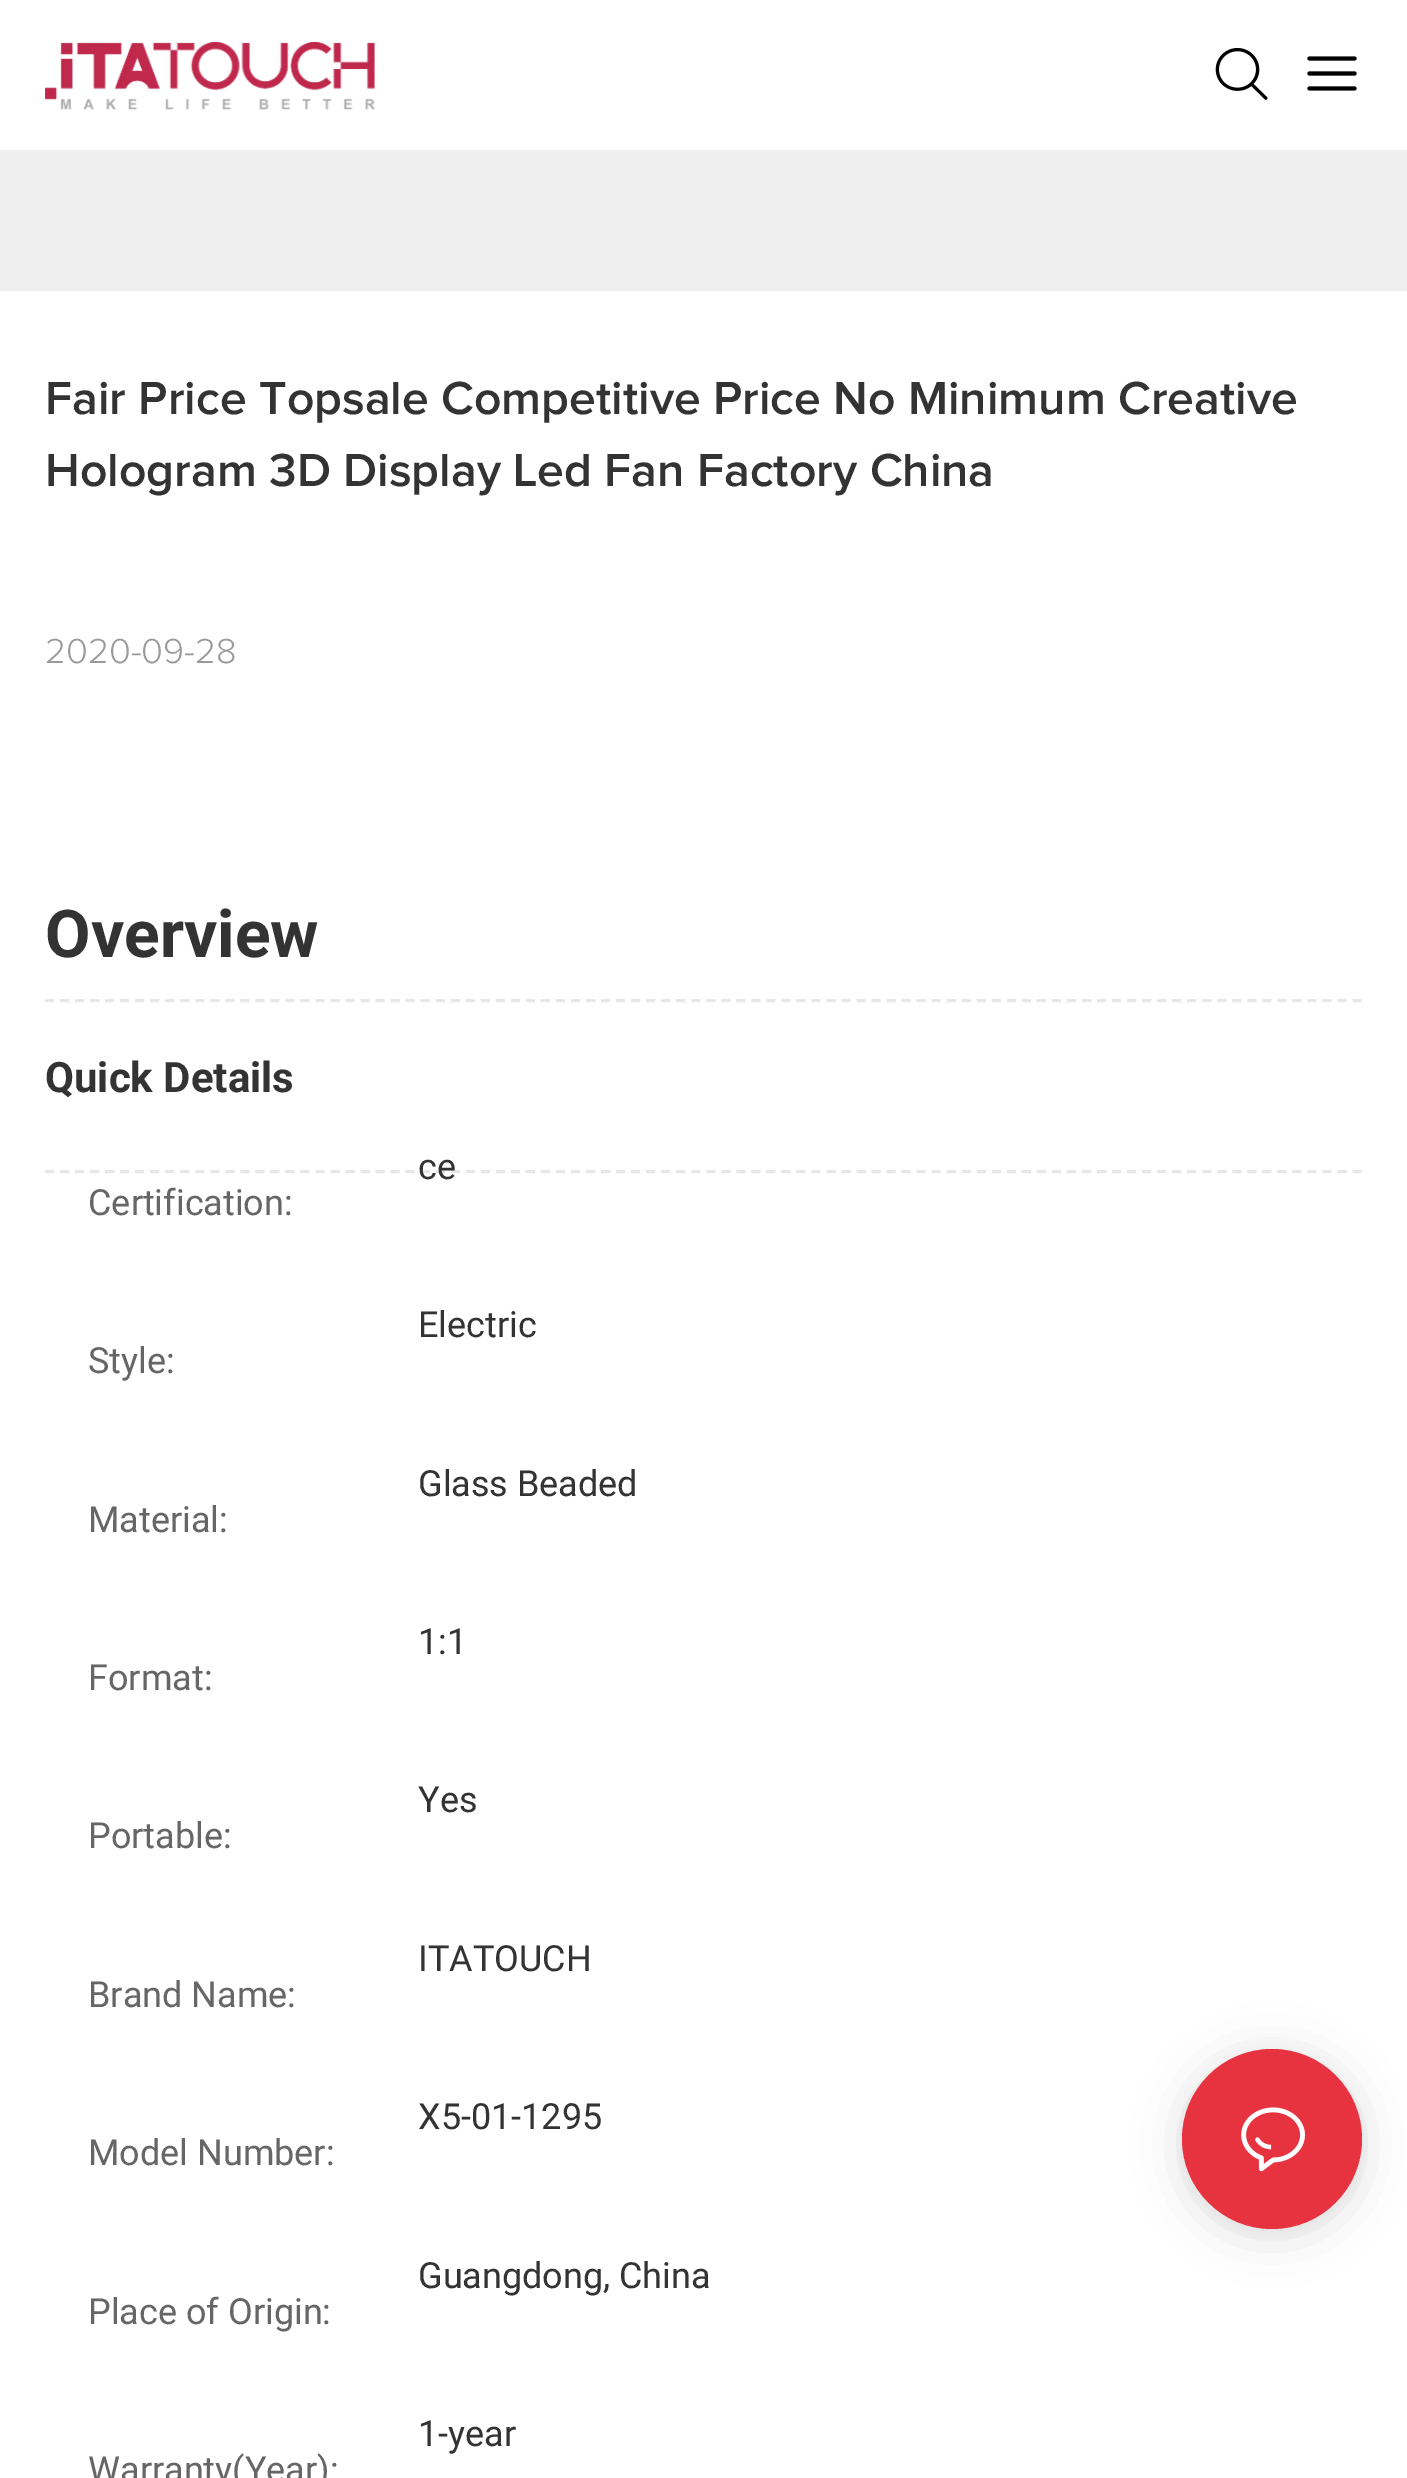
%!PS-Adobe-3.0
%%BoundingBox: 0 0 1407 2478
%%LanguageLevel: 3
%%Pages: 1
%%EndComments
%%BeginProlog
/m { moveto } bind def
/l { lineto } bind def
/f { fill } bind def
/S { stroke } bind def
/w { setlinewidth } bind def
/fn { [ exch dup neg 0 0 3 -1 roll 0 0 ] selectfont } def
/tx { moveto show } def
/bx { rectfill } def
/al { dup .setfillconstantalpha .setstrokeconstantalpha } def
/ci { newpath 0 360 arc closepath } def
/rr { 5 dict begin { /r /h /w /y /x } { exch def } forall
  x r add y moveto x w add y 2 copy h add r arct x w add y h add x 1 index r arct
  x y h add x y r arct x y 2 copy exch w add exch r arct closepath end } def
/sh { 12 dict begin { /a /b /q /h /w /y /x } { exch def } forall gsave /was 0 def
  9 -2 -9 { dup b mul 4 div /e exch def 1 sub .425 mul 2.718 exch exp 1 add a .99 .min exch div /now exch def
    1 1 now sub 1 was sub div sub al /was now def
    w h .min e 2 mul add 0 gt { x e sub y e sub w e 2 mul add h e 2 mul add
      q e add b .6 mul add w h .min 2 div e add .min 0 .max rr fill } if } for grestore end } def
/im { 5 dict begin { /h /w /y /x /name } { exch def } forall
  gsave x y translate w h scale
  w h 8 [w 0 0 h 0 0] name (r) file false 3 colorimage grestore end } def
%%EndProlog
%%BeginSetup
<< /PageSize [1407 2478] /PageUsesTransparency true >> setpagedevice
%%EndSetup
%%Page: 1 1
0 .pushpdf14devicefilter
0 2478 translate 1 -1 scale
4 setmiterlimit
1 setgray
0 0 1407 2478 bx
(image0.raw) 45 42 330 68 im
(image1.raw) 1215 47 53 53 im
(image2.raw) 1307 56 50 35 im
0.937 setgray
0 150 1407 141 bx
/ProximaNova-SemiBold 48 fn
0.2 setgray
(Fair Price Topsale Competitive Price No Minimum Creative) 45 414 tx
(Hologram 3D Display Led Fan Factory China) 45 486 tx
/ProximaNova-Light 36 fn
0.6 setgray
(2020-09-28) 45 663 tx
/Roboto-Bold 66 fn
0.2 setgray
(Overview) 45 957 tx
0.902 0.906 0.922 setrgbcolor
3 w
[9 6.03] 0 setdash
45 1000.5 m 1362 1000.5 l S
45 1171.5 m 1362 1171.5 l S
/Roboto-Bold 42 fn
0.2 setgray
(Quick Details) 45 1092 tx
/Roboto-Regular 36 fn
(ce) 418 1179 tx
0.4 setgray
(Certification:) 88 1215 tx
0.2 setgray
(Electric) 418 1337 tx
0.4 setgray
(Style:) 88 1373 tx
0.2 setgray
(Glass Beaded) 418 1496 tx
0.4 setgray
(Material:) 88 1532 tx
0.2 setgray
(1:1) 418 1654 tx
0.4 setgray
(Format:) 88 1690 tx
0.2 setgray
(Yes) 418 1812 tx
0.4 setgray
(Portable:) 88 1848 tx
0.2 setgray
(ITATOUCH) 418 1971 tx
0.4 setgray
(Brand Name:) 88 2007 tx
0.2 setgray
(X5-01-1295) 418 2129 tx
0.4 setgray
(Model Number:) 88 2165 tx
0.2 setgray
(Guangdong, China) 418 2288 tx
0.4 setgray
(Place of Origin:) 88 2324 tx
0.2 setgray
(1-year) 418 2446 tx
0.4 setgray
(Warranty\(Year\):) 88 2482 tx
0 setgray
1182 2055 180 180 90 24 0.12 sh
1182 2052 180 180 90 6 0.06 sh
0.906 0.2 0.247 setrgbcolor
1272 2139 90 ci f
(image3.raw) 1241 2107 64 65 im
.poppdf14devicefilter showpage
%%EOF
